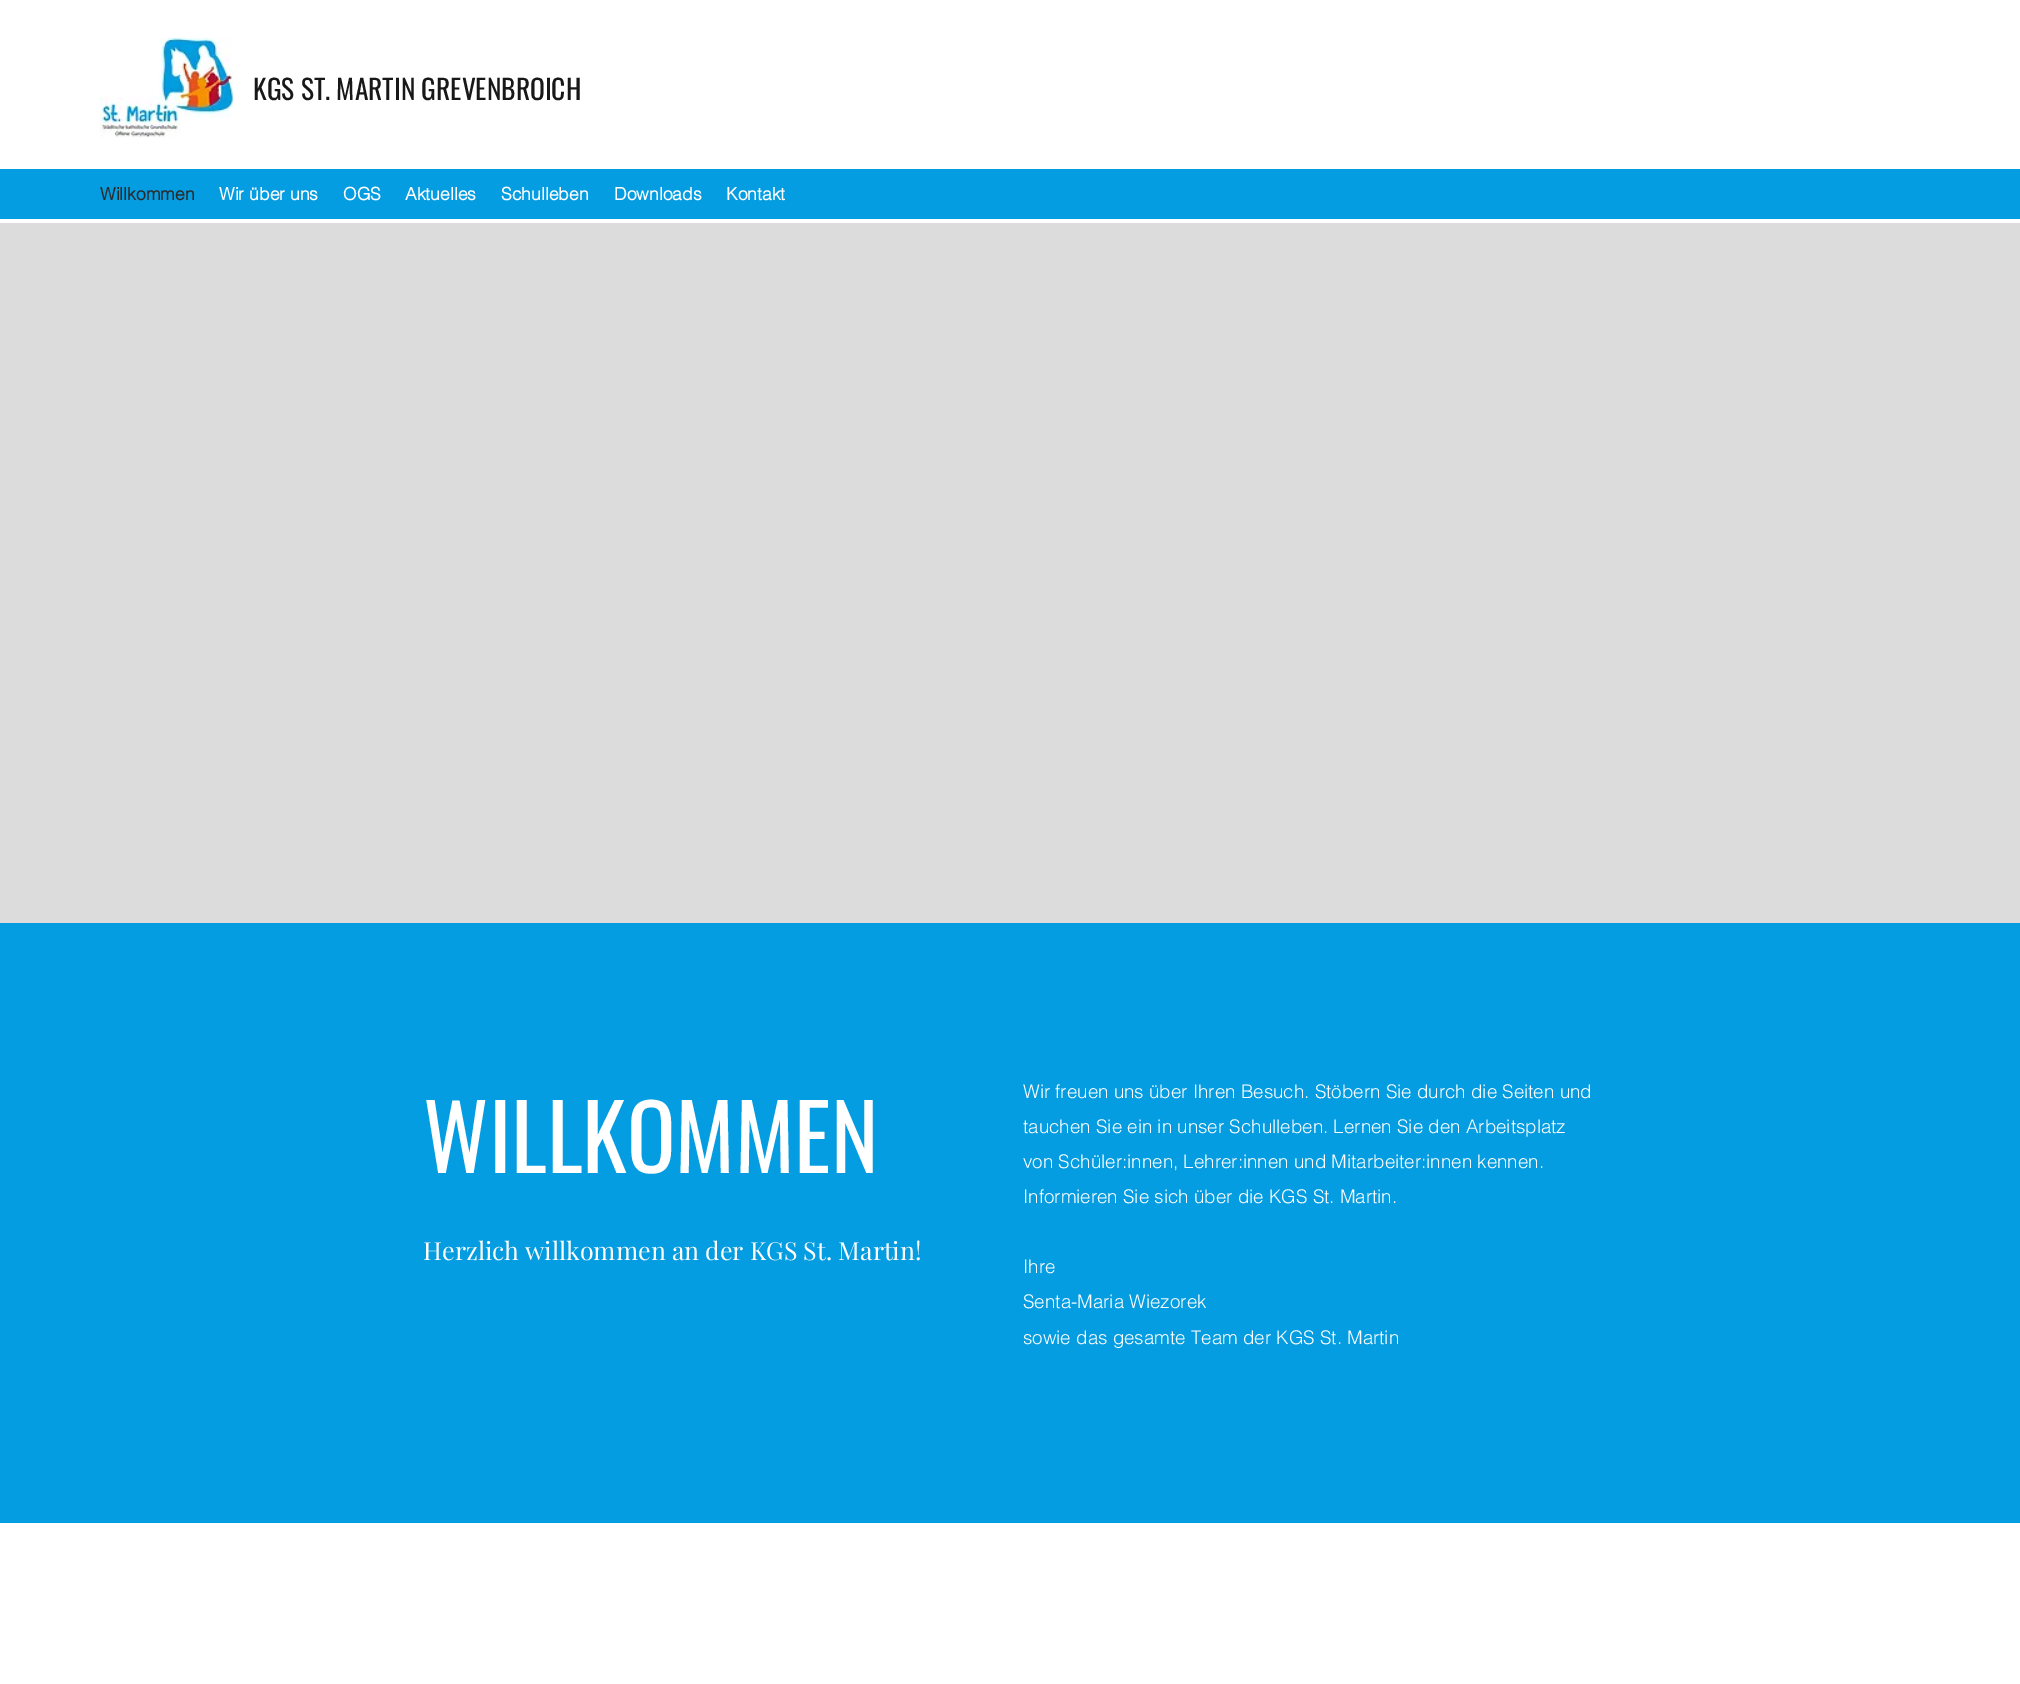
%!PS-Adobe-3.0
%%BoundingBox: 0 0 2020 1684
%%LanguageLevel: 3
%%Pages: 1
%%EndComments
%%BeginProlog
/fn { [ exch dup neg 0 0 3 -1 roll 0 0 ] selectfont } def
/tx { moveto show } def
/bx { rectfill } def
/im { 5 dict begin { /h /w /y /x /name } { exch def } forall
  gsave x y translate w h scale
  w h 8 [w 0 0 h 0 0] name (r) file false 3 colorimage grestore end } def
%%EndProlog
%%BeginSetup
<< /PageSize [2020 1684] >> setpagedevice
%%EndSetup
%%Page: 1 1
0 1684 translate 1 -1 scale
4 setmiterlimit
1 setgray
0 0 2020 1684 bx
(image0.raw) 100 37 134 101 im
/Oswald-Regular 27.5 fn
0.094 setgray
(KGS ST. MARTIN GREVENBROICH) 253 100 tx
0.02 0.616 0.882 setrgbcolor
0 169 2020 50 bx
/helvetica-Bold 17.5 fn
0.165 setgray
(Willkommen) 100 200 tx
1 setgray
(Wir über uns) 219 200 tx
(OGS) 343 200 tx
(Aktuelles) 405 200 tx
(Schulleben) 501 200 tx
(Downloads) 614 200 tx
(Kontakt) 726 200 tx
0.863 setgray
0 223 2020 700 bx
0.02 0.616 0.882 setrgbcolor
0 923 2020 600 bx
/Oswald-Regular 90 fn
1 setgray
(WILLKOMMEN) 423 1173 tx
/helvetica-Light 18.75 fn
(Wir freuen uns über Ihren Besuch. Stöbern Sie durch die Seiten und) 1023 1098 tx
(tauchen Sie ein in unser Schulleben. Lernen Sie den Arbeitsplatz) 1023 1133 tx
(von Schüler:innen, Lehrer:innen und Mitarbeiter:innen kennen.) 1023 1168 tx
(Informieren Sie sich über die KGS St. Martin.) 1023 1203 tx
(Ihre) 1023 1273 tx
(Senta-Maria Wiezorek) 1023 1308 tx
(sowie das gesamte Team der KGS St. Martin) 1023 1344 tx
/PlayfairDisplay-Regular 25 fn
(Herzlich willkommen an der KGS St. Martin!) 423 1260 tx
showpage
%%EOF
